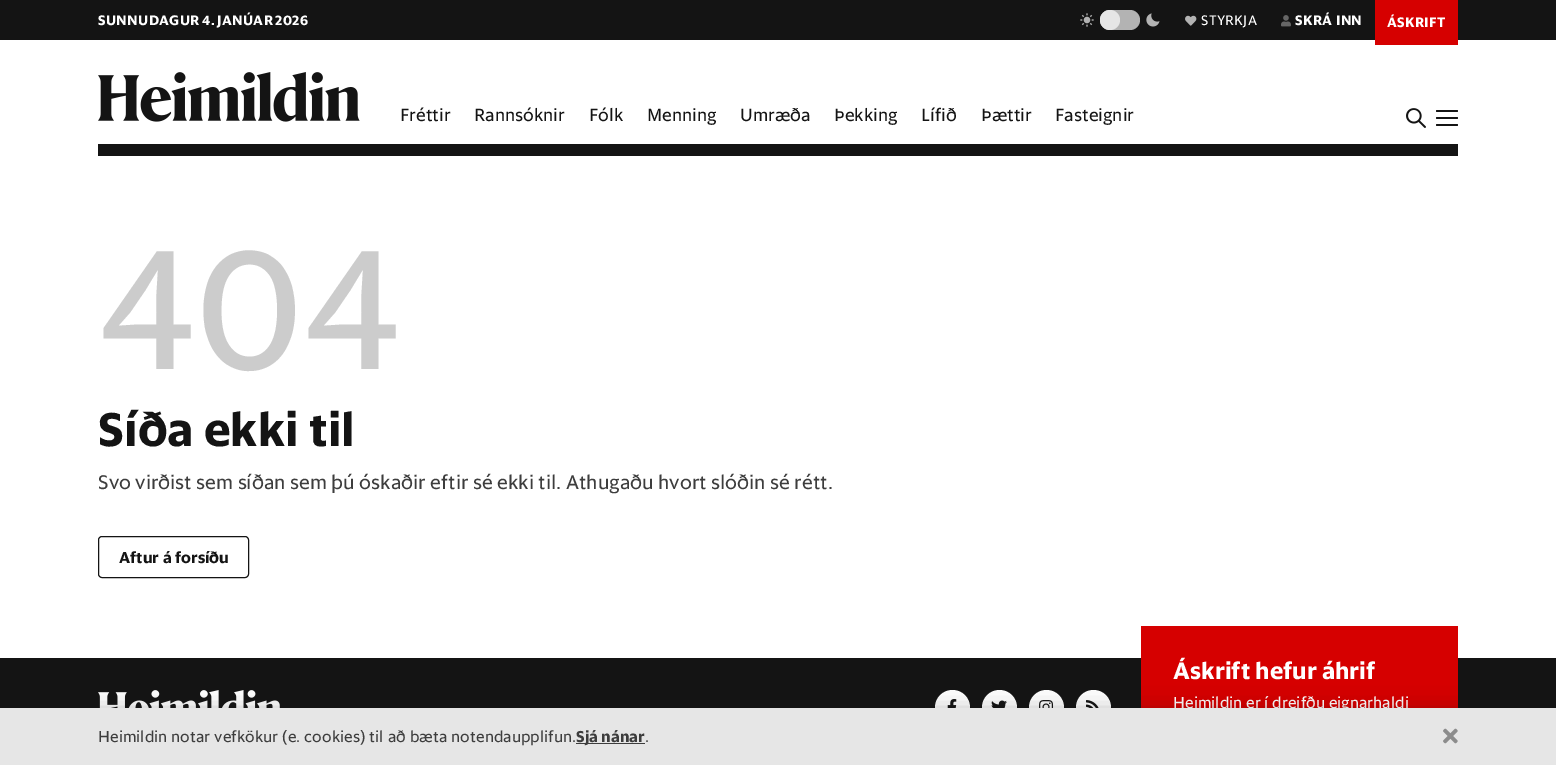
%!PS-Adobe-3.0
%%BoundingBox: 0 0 1556 765
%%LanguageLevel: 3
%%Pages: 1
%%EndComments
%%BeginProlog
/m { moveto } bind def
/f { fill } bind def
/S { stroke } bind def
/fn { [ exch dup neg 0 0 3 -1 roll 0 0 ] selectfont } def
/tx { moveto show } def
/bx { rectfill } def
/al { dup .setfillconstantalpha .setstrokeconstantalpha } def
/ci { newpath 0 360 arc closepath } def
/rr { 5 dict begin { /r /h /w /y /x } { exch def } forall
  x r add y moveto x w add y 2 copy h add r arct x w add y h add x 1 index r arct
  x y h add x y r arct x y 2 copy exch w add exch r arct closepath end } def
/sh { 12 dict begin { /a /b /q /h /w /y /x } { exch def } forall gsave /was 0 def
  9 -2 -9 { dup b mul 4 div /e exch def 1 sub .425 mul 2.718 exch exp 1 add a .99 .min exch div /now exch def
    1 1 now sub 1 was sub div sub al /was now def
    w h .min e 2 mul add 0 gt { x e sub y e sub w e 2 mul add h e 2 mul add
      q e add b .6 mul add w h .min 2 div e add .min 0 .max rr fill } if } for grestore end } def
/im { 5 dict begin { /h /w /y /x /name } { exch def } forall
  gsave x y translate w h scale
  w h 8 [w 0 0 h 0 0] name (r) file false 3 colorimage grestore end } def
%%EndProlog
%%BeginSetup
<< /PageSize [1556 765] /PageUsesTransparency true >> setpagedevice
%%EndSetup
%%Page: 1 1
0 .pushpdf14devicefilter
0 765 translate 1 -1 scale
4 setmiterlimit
1 setgray
0 0 1556 765 bx
0.078 setgray
0 0 1556 40 bx
/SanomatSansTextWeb-Bold 14 fn
1 setgray
98 25 m -1 0 32 0.35 0 (SUNNUDAGUR 4. JANÚAR 2026) awidthshow
(image0.raw) 1080 13 14 14 im
0.702 setgray
1100 10 40 20 10 rr f
0.902 setgray
1110 20 10 ci f
(image1.raw) 1146 13 14 14 im
(image2.raw) 1185 15 12 11 im
/SanomatSansTextWeb-Regular 14 fn
1 setgray
1201 25 m 0.35 0 (STYRKJA) ashow
(image3.raw) 1281 15 10 12 im
/SanomatSansTextWeb-Bold 14 fn
1295 25 m 0.35 0 (SKRÁ INN) ashow
0.839 0 0 setrgbcolor
1375 0 83 45 bx
1 setgray
1387 27 m 0.35 0 (ÁSKRIFT) ashow
0.078 setgray
98 144 1360 12 bx
(image4.raw) 98 72 262 50 im
/SanomatSansTextWeb-Regular 18 fn
(Fréttir) 400 121 tx
(Rannsóknir) 474 121 tx
(Fólk) 589 121 tx
(Menning) 647 121 tx
(Umræða) 740 121 tx
(Þekking) 834 121 tx
(Lífið) 921 121 tx
(Þættir) 981 121 tx
(Fasteignir) 1055 121 tx
(image5.raw) 1406 108 20 20 im
1436 110 22 2 1 rr f
1436 117 22 2 1 rr f
1436 124 22 2 1 rr f
/SanomatSansTextWeb-Regular 176 fn
0.8 setgray
(404) 98 369 tx
/SanomatSansTextWeb-Bold 48 fn
0.078 setgray
(Síða ekki til) 98 446 tx
/SanomatSansTextWeb-Regular 20 fn
0.239 setgray
98 489 m -0.2 0 32 (Svo virðist sem síðan sem þú óskaðir eftir sé ekki til. Athugaðu hvort slóðin sé rétt.) widthshow
0.078 setgray
98.5 536.5 150 41 3.5 rr S
/SanomatSansTextWeb-Bold 16 fn
(Aftur á forsíðu) 119 563 tx
0 658 1556 50 bx
(image6.raw) 98 690 182 18 im
1 setgray
952.5 707.5 17.5 ci f
(image7.raw) 947 699 10 9 im
999.5 707.5 17.5 ci f
(image8.raw) 991 700 16 8 im
1046.5 707.5 17.5 ci f
(image9.raw) 1039 700 15 8 im
1093.5 707.5 17.5 ci f
(image10.raw) 1086 700 13 8 im
0.839 0 0 setrgbcolor
1141 626 317 82 bx
/SanomatSansTextWeb-Bold 24 fn
1 setgray
(Áskrift hefur áhrif) 1173 679 tx
/SanomatSansTextWeb-Regular 16 fn
(Heimildin er í dreifðu eignarhaldi) 1173 708 tx
0.078 setgray
0 708 1556 57 0 10 0.25 sh
0.902 setgray
0 708 1556 57 bx
0.239 setgray
98 742 m 0.25 0 32 (Heimildin notar vefkökur \(e. cookies\) til að bæta notendaupplifun.) widthshow
576 743 69 1 bx
/SanomatSansTextWeb-Bold 16 fn
(Sjá nánar) 576 742 tx
/SanomatSansTextWeb-Regular 16 fn
(.) 645 742 tx
(image11.raw) 1443 728 15 16 im
.poppdf14devicefilter showpage
%%EOF
